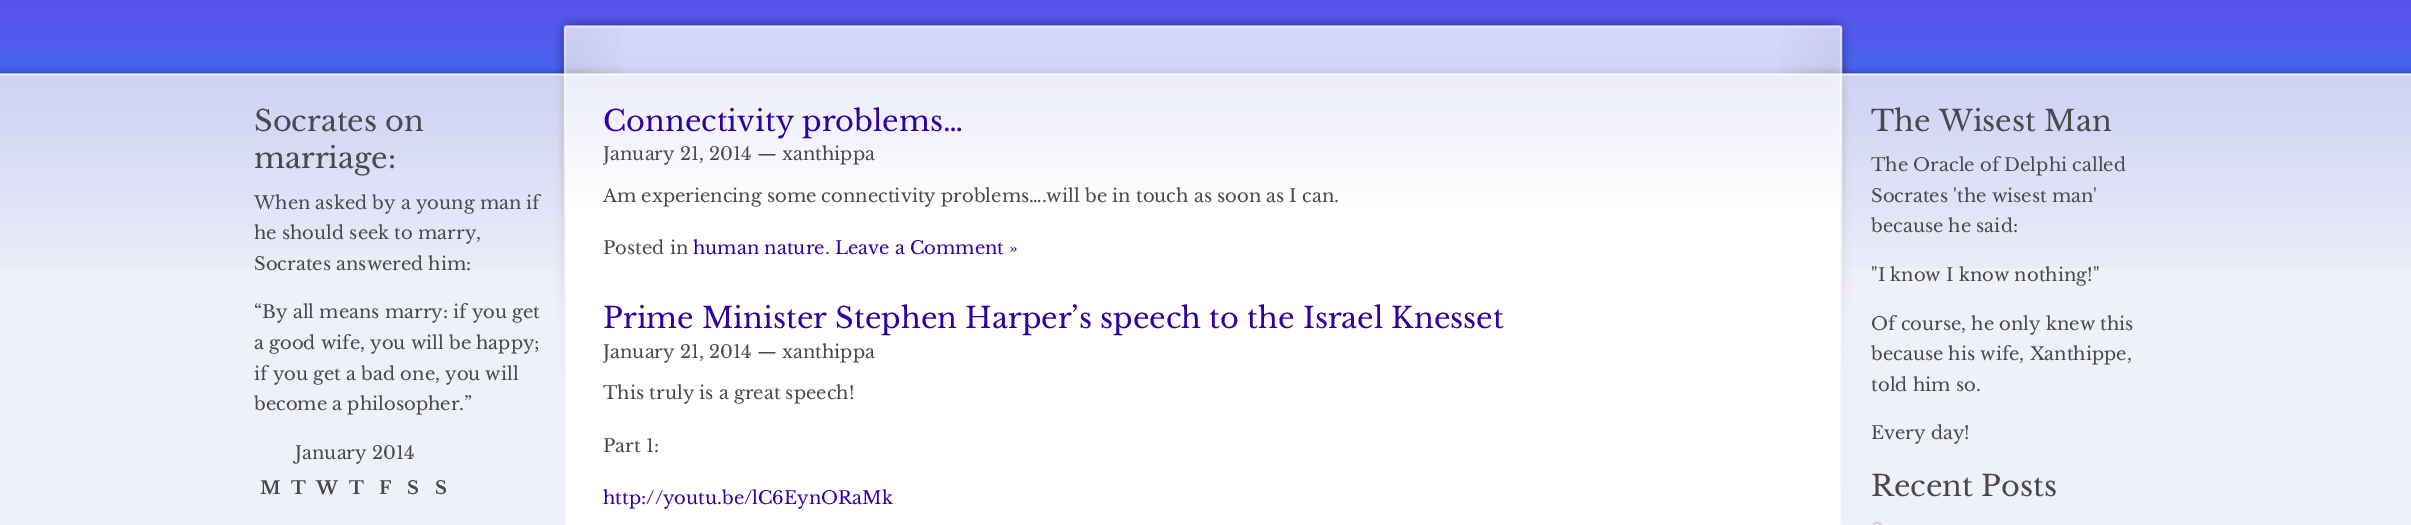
%!PS-Adobe-3.0
%%BoundingBox: 0 0 2411 525
%%LanguageLevel: 3
%%Pages: 1
%%EndComments
%%BeginProlog
/q { gsave } bind def
/Q { grestore } bind def
/fn { [ exch dup neg 0 0 3 -1 roll 0 0 ] selectfont } def
/tx { moveto show } def
/bx { rectfill } def
/im { 5 dict begin { /h /w /y /x /name } { exch def } forall
  gsave x y translate w h scale
  w h 8 [w 0 0 h 0 0] name (r) file false 3 colorimage grestore end } def
%%EndProlog
%%BeginSetup
<< /PageSize [2411 525] >> setpagedevice
%%EndSetup
%%Page: 1 1
0 525 translate 1 -1 scale
4 setmiterlimit
0.933 0.941 0.984 setrgbcolor
0 0 2411 525 bx
(image0.raw) 0 0 2411 268 im
/LibreBaskerville-Regular 28.8 fn
0.286 setgray
(Socrates on) 254 131 tx
(marriage:) 254 168 tx
/LibreBaskerville-Regular 18 fn
(When asked by a young man if) 254 209 tx
(he should seek to marry,) 254 239 tx
(Socrates answered him:) 254 270 tx
(“By all means marry: if you get) 254 318 tx
(a good wife, you will be happy;) 254 349 tx
(if you get a bad one, you will) 254 380 tx
(become a philosopher.”) 254 410 tx
(January 2014) 295 459 tx
/LibreBaskerville-Bold 18 fn
(M) 260 494 tx
(T) 291 494 tx
(W) 316 494 tx
(T) 349 494 tx
(F) 379 494 tx
(S) 407 494 tx
(S) 435 494 tx
1 setgray
622 312 1159 213 bx
(image1.raw) 565 12 1216 300 im
(image2.raw) 1781 12 71 513 im
(image3.raw) 554 18 68 507 im
/LibreBaskerville-Regular 28.8 fn
0.192 0 0.627 setrgbcolor
(Connectivity problems…) 603 131 tx
q
603 102 1200 162 rectclip
/LibreBaskerville-Regular 18 fn
0.286 setgray
(January 21, 2014 — xanthippa) 603 160 tx
Q
/LibreBaskerville-Regular 18 fn
0.286 setgray
(Am experiencing some connectivity problems….will be in touch as soon as I can.) 603 202 tx
(Posted in) 603 254 tx
0.192 0 0.627 setrgbcolor
(human nature) 693 254 tx
0.286 setgray
(.) 825 254 tx
0.192 0 0.627 setrgbcolor
(Leave a Comment ») 835 254 tx
/LibreBaskerville-Regular 28.8 fn
(Prime Minister Stephen Harper’s speech to the Israel Knesset) 603 328 tx
q
603 300 1200 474 rectclip
/LibreBaskerville-Regular 18 fn
0.286 setgray
(January 21, 2014 — xanthippa) 603 358 tx
Q
/LibreBaskerville-Regular 18 fn
0.286 setgray
(This truly is a great speech!) 603 399 tx
(Part 1:) 603 452 tx
0.192 0 0.627 setrgbcolor
(http://youtu.be/lC6EynORaMk) 603 504 tx
/LibreBaskerville-Regular 28.8 fn
0.286 setgray
(The Wisest Man) 1871 131 tx
/LibreBaskerville-Regular 18 fn
(The Oracle of Delphi called) 1871 171 tx
(Socrates 'the wisest man') 1871 202 tx
(because he said:) 1871 232 tx
("I know I know nothing!") 1871 281 tx
(Of course, he only knew this) 1871 330 tx
(because his wife, Xanthippe,) 1871 360 tx
(told him so.) 1871 391 tx
(Every day!) 1871 439 tx
/LibreBaskerville-Regular 28.8 fn
(Recent Posts) 1871 496 tx
(image4.raw) 1872 521 11 4 im
showpage
%%EOF
